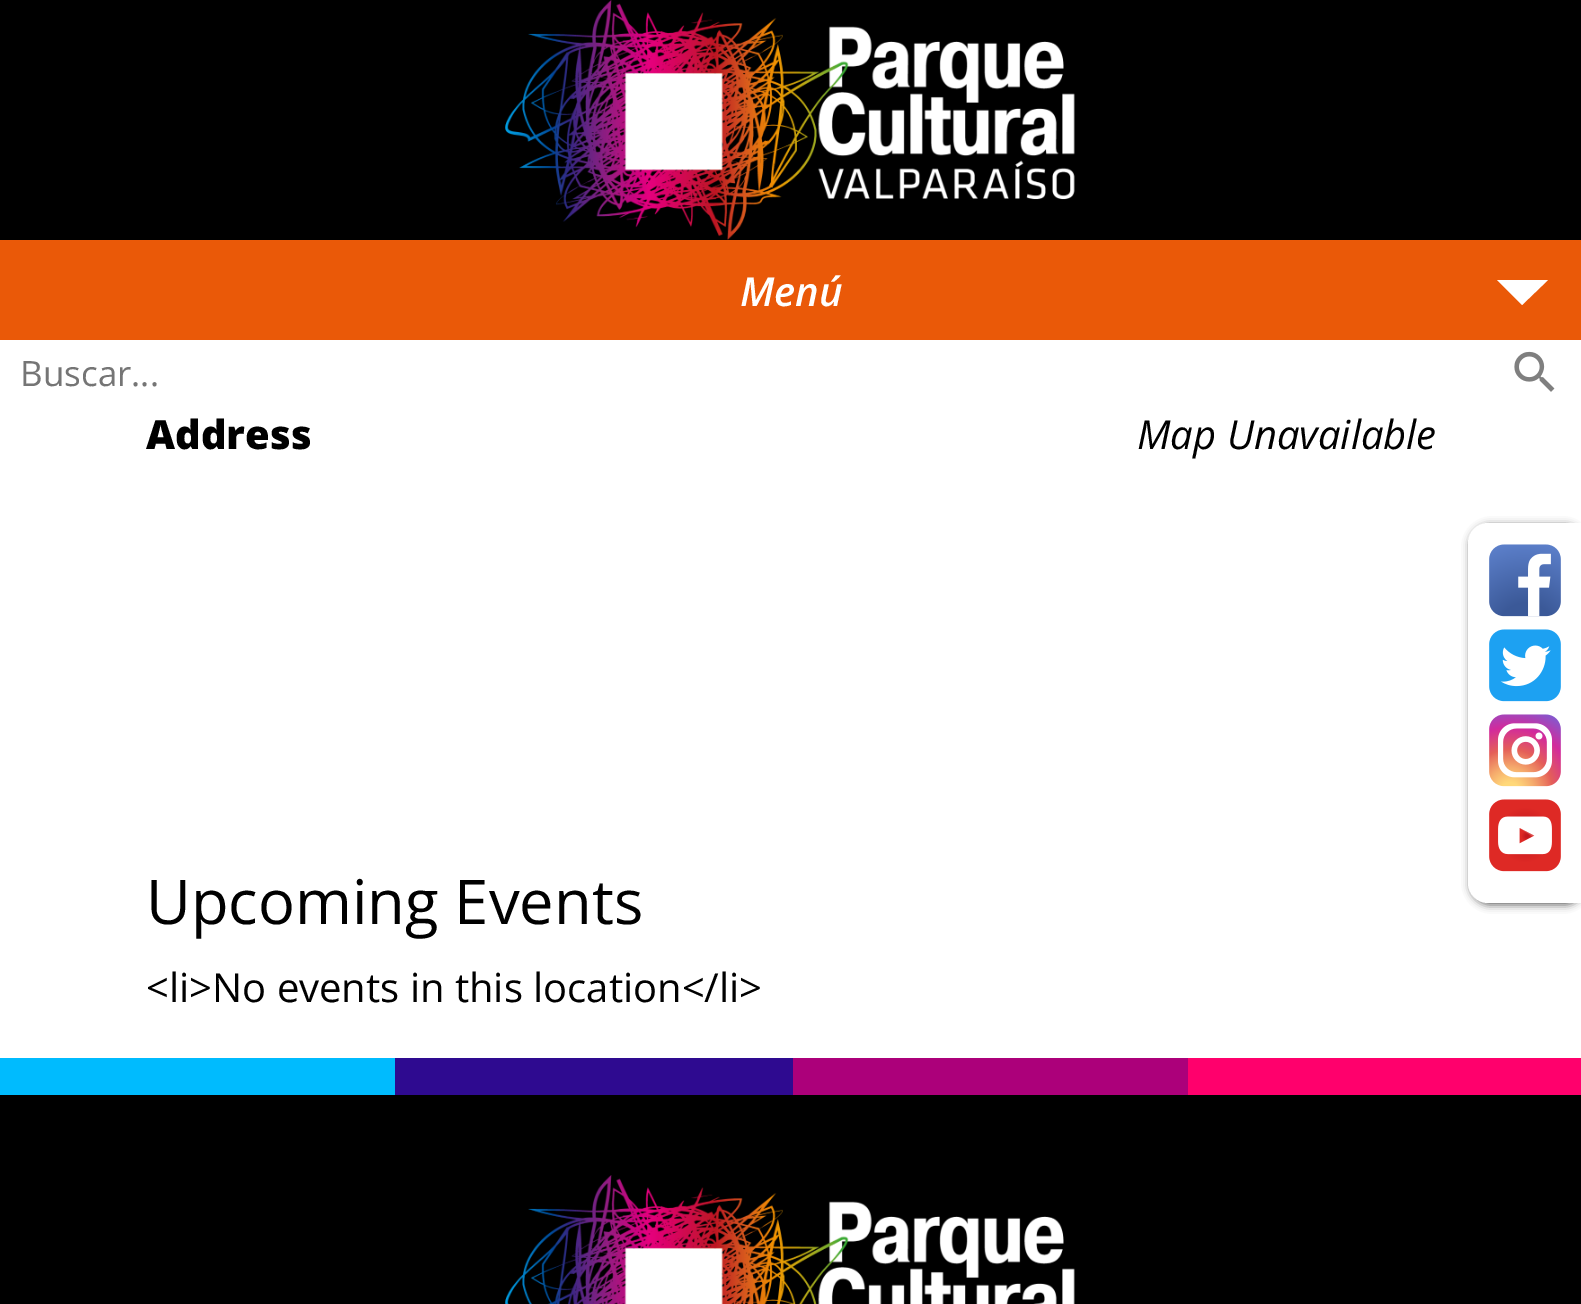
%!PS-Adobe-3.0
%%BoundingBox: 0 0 1581 1304
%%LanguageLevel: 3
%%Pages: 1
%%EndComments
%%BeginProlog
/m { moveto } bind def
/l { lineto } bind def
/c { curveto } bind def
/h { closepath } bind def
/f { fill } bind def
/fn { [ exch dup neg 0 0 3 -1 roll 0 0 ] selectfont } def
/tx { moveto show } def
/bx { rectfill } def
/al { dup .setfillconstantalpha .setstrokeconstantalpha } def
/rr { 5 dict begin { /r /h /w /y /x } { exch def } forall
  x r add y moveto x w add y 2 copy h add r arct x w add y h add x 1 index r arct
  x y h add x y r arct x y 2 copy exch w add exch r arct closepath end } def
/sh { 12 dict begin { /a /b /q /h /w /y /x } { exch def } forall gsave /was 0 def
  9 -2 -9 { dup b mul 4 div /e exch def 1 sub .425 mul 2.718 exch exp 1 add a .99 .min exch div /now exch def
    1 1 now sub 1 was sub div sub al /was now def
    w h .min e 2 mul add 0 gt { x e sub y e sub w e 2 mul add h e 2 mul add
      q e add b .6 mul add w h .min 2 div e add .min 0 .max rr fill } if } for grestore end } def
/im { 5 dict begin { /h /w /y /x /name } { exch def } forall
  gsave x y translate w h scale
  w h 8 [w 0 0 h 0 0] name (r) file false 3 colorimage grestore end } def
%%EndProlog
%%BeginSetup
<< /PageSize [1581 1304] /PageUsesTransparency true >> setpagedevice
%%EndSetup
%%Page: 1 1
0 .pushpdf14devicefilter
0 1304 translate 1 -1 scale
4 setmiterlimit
1 setgray
0 0 1581 1304 bx
0 setgray
0 0 1581 240 bx
(image0.raw) 505 0 570 240 im
0.918 0.349 0.031 setrgbcolor
0 240 1581 100 bx
/OpenSans-SemiBoldItalic 40 fn
1 setgray
(Menú) 740 306 tx
1497 280 m 1548 280 l 1522 305 l h f
/OpenSans-Regular 35 fn
0.459 setgray
(Buscar...) 20 386 tx
(image1.raw) 1514 351 41 41 im
/OpenSans-ExtraBold 40 fn
0 setgray
(Address) 146 449 tx
/OpenSans-Italic 40 fn
(Map Unavailable) 1137 449 tx
/OpenSans-Regular 61.5 fn
(Upcoming Events) 146 924 tx
/OpenSans-Regular 40 fn
(<li>No events in this location</li>) 146 1002 tx
0.4 setgray
1470 525 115 380 20 4 1 sh
1 setgray
1488 523 m 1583 523 l 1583 903 l 1488 903 l 1477 903 1468 894 1468 883 c 1468 543 l 1468 532 1477 523 1488 523 c h f
(image2.raw) 1489 544 72 73 im
(image3.raw) 1489 629 72 73 im
(image4.raw) 1489 714 72 73 im
(image5.raw) 1489 799 72 73 im
0 setgray
0 1095 1581 209 bx
0.675 0 0.478 setrgbcolor
793 1058 395 37 bx
0 0.733 0.996 setrgbcolor
0 1058 395 37 bx
0.18 0.039 0.565 setrgbcolor
395 1058 398 37 bx
1 0 0.424 setrgbcolor
1188 1058 393 37 bx
(image6.raw) 505 1175 570 129 im
.poppdf14devicefilter showpage
%%EOF
